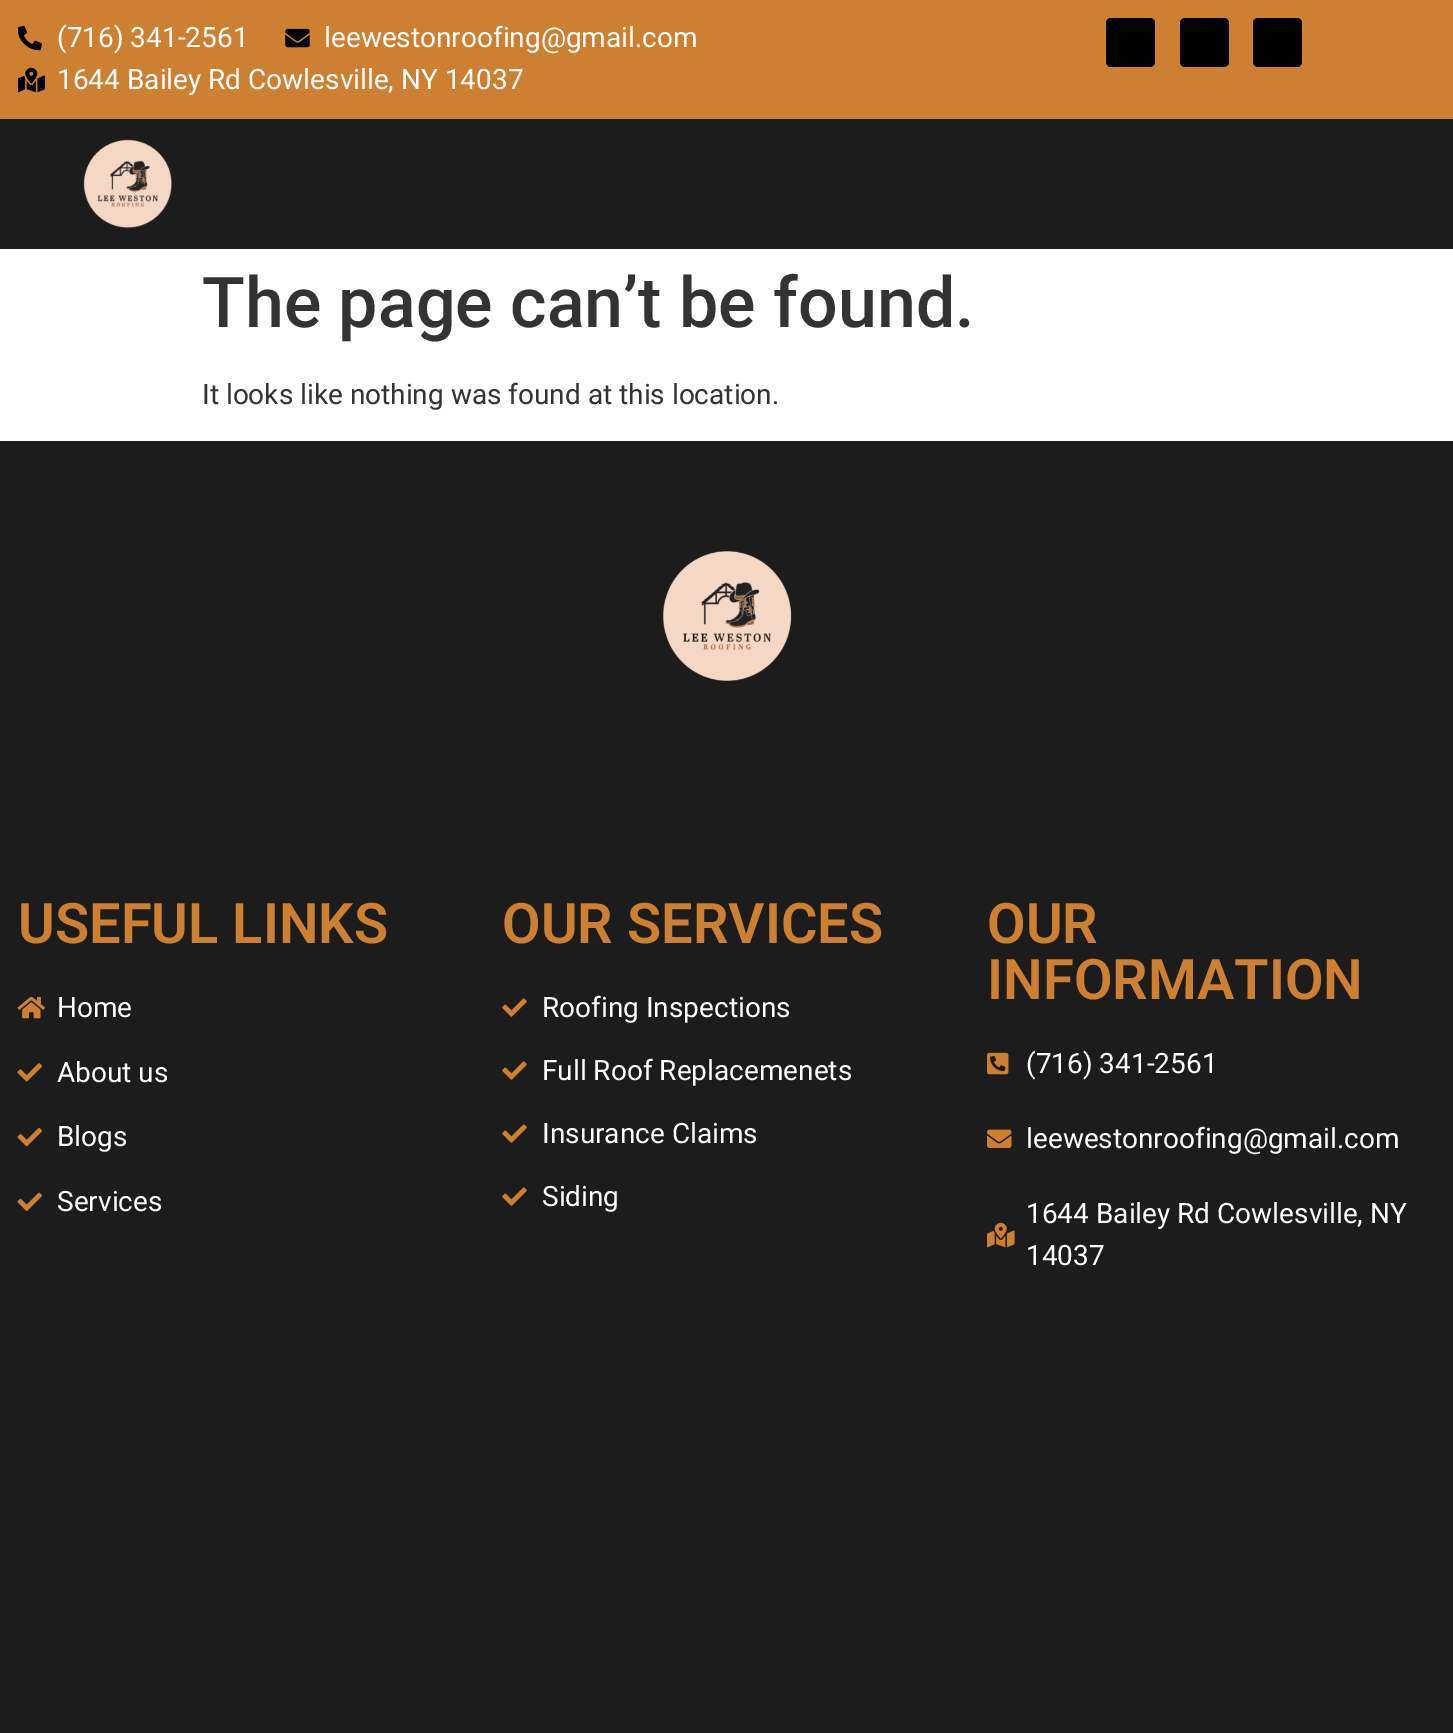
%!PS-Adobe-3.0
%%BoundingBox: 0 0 1453 1733
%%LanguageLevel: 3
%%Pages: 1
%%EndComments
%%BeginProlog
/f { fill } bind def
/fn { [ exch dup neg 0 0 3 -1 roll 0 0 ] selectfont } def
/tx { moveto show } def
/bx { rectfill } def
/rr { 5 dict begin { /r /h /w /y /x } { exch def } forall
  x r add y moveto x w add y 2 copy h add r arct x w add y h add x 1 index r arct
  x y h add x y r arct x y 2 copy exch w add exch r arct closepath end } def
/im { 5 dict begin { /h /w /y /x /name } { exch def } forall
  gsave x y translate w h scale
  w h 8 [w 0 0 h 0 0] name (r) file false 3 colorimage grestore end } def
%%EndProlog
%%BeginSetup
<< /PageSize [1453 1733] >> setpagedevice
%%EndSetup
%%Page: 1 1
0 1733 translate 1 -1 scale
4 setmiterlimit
1 setgray
0 0 1453 1733 bx
0.804 0.498 0.196 setrgbcolor
0 0 1453 119 bx
(image0.raw) 18 25 24 26 im
/Roboto-Regular 28 fn
1 setgray
(\(716\) 341-2561) 57 47 tx
(image1.raw) 285 28 25 20 im
(leewestonroofing@gmail.com) 324 47 tx
(image2.raw) 18 67 28 26 im
(1644 Bailey Rd Cowlesville, NY 14037) 57 89 tx
0 setgray
1106 18 49 49 5 rr f
1180 18 49 49 5 rr f
1253 18 49 49 5 rr f
0.11 setgray
0 119 1453 130 bx
(image3.raw) 83 139 89 89 im
/Roboto-Medium 70 fn
0.2 setgray
(The page can’t be found.) 202 327 tx
/Roboto-Regular 28 fn
(It looks like nothing was found at this location.) 202 404 tx
0.11 setgray
0 441 1453 1292 bx
(image4.raw) 662 551 130 130 im
/Roboto-SemiBold 56 fn
0.804 0.498 0.196 setrgbcolor
(USEFUL LINKS) 18 943 tx
(image5.raw) 17 996 29 23 im
/Roboto-Regular 28 fn
1 setgray
(Home) 57 1017 tx
(image6.raw) 17 1063 25 19 im
(About us) 57 1082 tx
(image7.raw) 17 1128 25 19 im
(Blogs) 57 1146 tx
(image8.raw) 17 1192 25 19 im
(Services) 57 1211 tx
/Roboto-SemiBold 56 fn
0.804 0.498 0.196 setrgbcolor
(OUR SERVICES) 502 943 tx
(image9.raw) 502 998 25 19 im
/Roboto-Regular 28 fn
1 setgray
(Roofing Inspections) 542 1017 tx
(image9.raw) 502 1061 25 19 im
(Full Roof Replacemenets) 542 1080 tx
(image9.raw) 502 1124 25 19 im
(Insurance Claims) 542 1143 tx
(image9.raw) 502 1187 25 19 im
(Siding) 542 1206 tx
/Roboto-SemiBold 56 fn
0.804 0.498 0.196 setrgbcolor
(OUR) 987 943 tx
(INFORMATION) 987 999 tx
(image10.raw) 987 1052 22 23 im
/Roboto-Regular 28 fn
1 setgray
(\(716\) 341-2561) 1026 1073 tx
(image11.raw) 987 1129 25 19 im
(leewestonroofing@gmail.com) 1026 1148 tx
(image12.raw) 987 1222 28 26 im
(1644 Bailey Rd Cowlesville, NY) 1026 1223 tx
(14037) 1026 1265 tx
showpage
%%EOF
